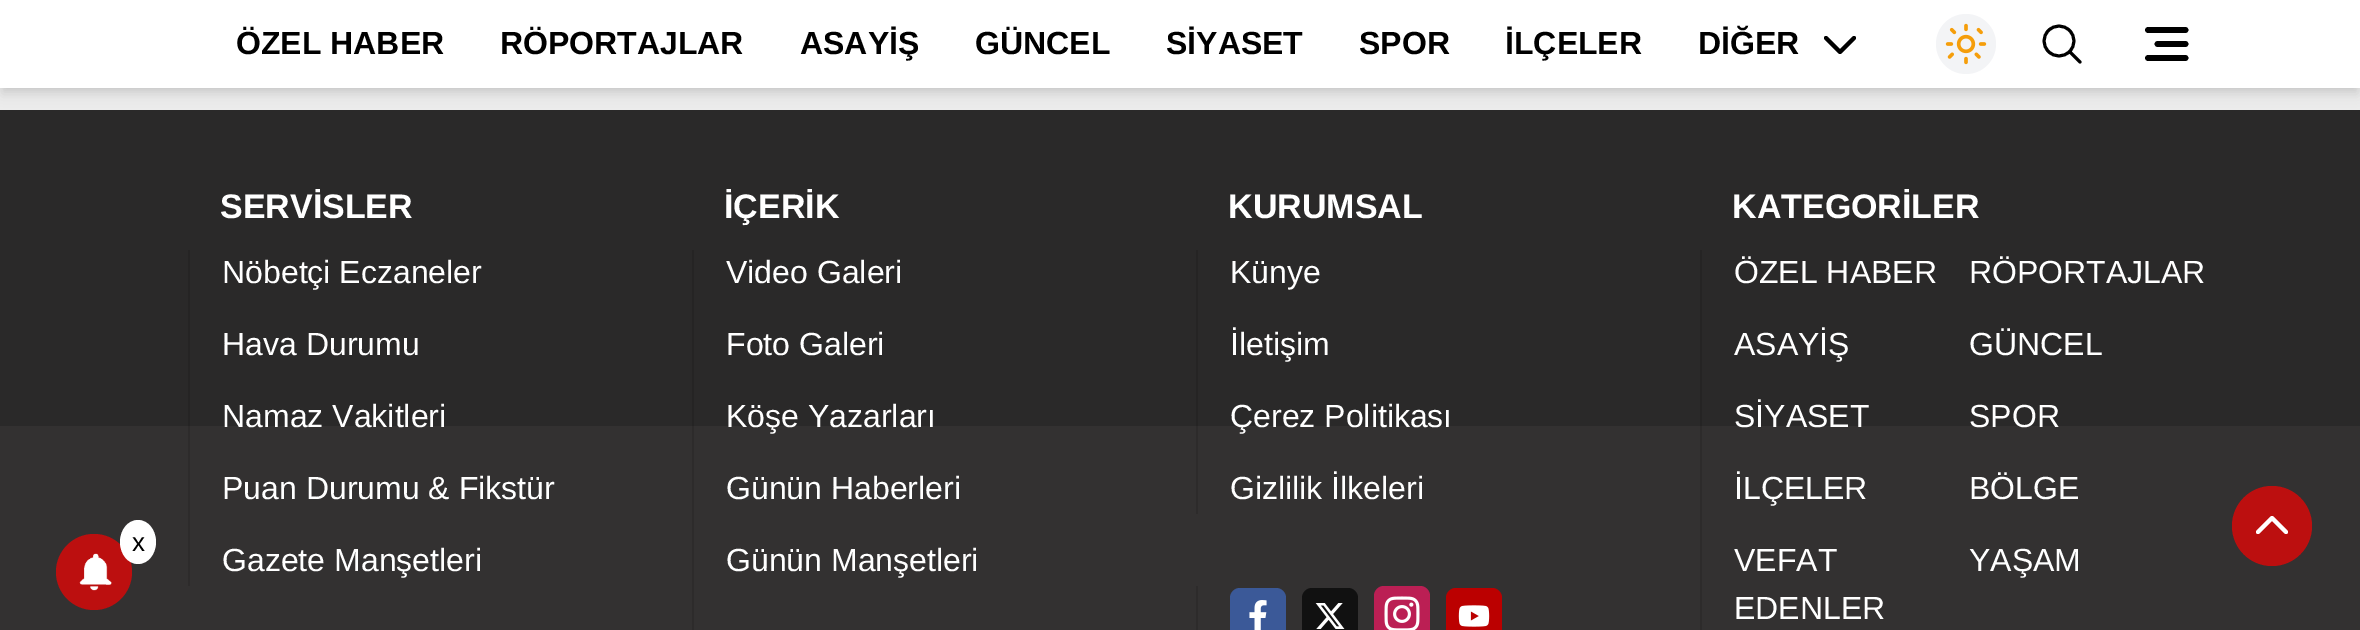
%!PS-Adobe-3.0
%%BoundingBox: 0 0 2360 630
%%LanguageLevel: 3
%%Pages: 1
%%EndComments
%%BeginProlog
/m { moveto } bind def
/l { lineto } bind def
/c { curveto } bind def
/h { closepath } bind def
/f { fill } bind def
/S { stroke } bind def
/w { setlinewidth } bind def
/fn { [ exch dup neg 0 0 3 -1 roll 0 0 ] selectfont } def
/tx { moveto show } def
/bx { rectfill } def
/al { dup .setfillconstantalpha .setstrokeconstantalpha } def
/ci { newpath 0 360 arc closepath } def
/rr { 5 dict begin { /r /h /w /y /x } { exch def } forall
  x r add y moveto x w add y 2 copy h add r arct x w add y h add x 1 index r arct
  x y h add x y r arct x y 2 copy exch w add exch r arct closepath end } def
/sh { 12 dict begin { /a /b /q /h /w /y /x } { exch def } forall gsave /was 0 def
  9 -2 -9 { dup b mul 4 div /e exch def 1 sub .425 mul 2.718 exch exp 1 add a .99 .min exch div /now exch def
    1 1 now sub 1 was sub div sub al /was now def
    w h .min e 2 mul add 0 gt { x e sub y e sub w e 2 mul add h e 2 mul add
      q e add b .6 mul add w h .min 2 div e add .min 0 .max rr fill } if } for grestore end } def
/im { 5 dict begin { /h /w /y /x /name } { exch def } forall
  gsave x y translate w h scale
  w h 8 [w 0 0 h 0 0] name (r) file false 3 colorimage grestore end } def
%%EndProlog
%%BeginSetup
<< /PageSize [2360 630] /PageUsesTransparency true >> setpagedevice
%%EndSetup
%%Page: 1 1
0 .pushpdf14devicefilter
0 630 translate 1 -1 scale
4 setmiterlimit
0.925 setgray
0 0 2360 630 bx
0 setgray
4 8 2352 80 0 4 0.1 sh
0.165 0.161 0.161 setrgbcolor
0 110 2360 316 bx
0 setgray
2 10 2356 84 0 6 0.1 sh
1 setgray
0 0 2360 88 bx
/LiberationSans-Bold 32 fn
0 setgray
(ÖZEL HABER) 236 54 tx
(RÖPORTAJLAR) 500 54 tx
(ASAYİŞ) 800 54 tx
(GÜNCEL) 975 54 tx
(SİYASET) 1166 54 tx
(SPOR) 1359 54 tx
(İLÇELER) 1505 54 tx
(DİĞER) 1698 54 tx
4 w
1 setlinecap
1 setlinejoin
1854 38 m 1840 52 l 1826 38 l S
0.953 0.957 0.965 setrgbcolor
1966 44 30 ci f
(image0.raw) 1945 23 42 42 im
0 setgray
3 w
2080 62 m 2069.5 51.5 l 2069.5 51.5 m 2075.5 45.5 2075.5 36.5 2069.5 30.5 c 2063.5 24.5 2054.5 24.5 2048.5 30.5 c 2042.5 36.5 2042.5 45.5 2048.5 51.5 c 2054.5 57.5 2063.5 57.5 2069.5 51.5 c h S
5.8 w
2185.5 30 m 2148 30 l 2185.5 44 m 2157.5 44 l 2185.5 58 m 2148 58 l S
0.2 0.192 0.192 setrgbcolor
0 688 m 79 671 l 157 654 315 618 472 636 c 629 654 787 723 944 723 c 1101 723 1259 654 1416 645 c 1573 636 1731 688 1888 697 c 2045 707 2203 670 2281 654 c 2360 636 l 2360 426 l 0 426 l h f
0.737 0.059 0.059 setrgbcolor
94 572 38 ci f
1 setgray
138 520 m 148 520 156 530 156 542 c 156 554 148 564 138 564 c 128 564 120 554 120 542 c 120 530 128 520 138 520 c h f
/LiberationSans-Regular 26 fn
0 setgray
(x) 132 551 tx
(image1.raw) 79 553 33 38 im
/LiberationSans-Bold 34 fn
1 setgray
(SERVİSLER) 220 218 tx
0.12 al
0 setgray
188 250 2 336 bx
/LiberationSans-Regular 32 fn
1 al
1 setgray
(Nöbetçi Eczaneler) 222 283 tx
(Hava Durumu) 222 355 tx
(Namaz Vakitleri) 222 427 tx
(Puan Durumu & Fikstür) 222 499 tx
(Gazete Manşetleri) 222 571 tx
/LiberationSans-Bold 34 fn
(İÇERİK) 724 218 tx
0.12 al
0 setgray
692 250 2 380 bx
/LiberationSans-Regular 32 fn
1 al
1 setgray
(Video Galeri) 726 283 tx
(Foto Galeri) 726 355 tx
(Köşe Yazarları) 726 427 tx
(Günün Haberleri) 726 499 tx
(Günün Manşetleri) 726 571 tx
/LiberationSans-Bold 34 fn
(KURUMSAL) 1228 218 tx
0.12 al
0 setgray
1196 250 2 264 bx
/LiberationSans-Regular 32 fn
1 al
1 setgray
(Künye) 1230 283 tx
(İletişim) 1230 355 tx
(Çerez Politikası) 1230 427 tx
(Gizlilik İlkeleri) 1230 499 tx
0.176 0.169 0.169 setrgbcolor
1196 586 2 44 bx
0.231 0.349 0.596 setrgbcolor
1230 588 56 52 10 rr f
(image2.raw) 1249 600 18 30 im
0.067 setgray
1302 588 56 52 10 rr f
(image3.raw) 1315 603 30 26 im
0.733 0.122 0.329 setrgbcolor
1374 586 56 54 10 rr f
(image4.raw) 1384 596 36 34 im
0.733 0 0 setrgbcolor
1446 588 56 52 10 rr f
(image5.raw) 1458 605 32 22 im
/LiberationSans-Bold 34 fn
1 setgray
(KATEGORİLER) 1732 218 tx
0.12 al
0 setgray
1700 250 2 380 bx
/LiberationSans-Regular 32 fn
1 al
1 setgray
(ÖZEL HABER) 1734 283 tx
(RÖPORTAJLAR) 1969 283 tx
(ASAYİŞ) 1734 355 tx
(GÜNCEL) 1969 355 tx
(SİYASET) 1734 427 tx
(SPOR) 1969 427 tx
(İLÇELER) 1734 499 tx
(BÖLGE) 1969 499 tx
(VEFAT) 1734 571 tx
(EDENLER) 1734 619 tx
(YAŞAM) 1969 571 tx
0.737 0.059 0.059 setrgbcolor
2272 526 40 ci f
1 setgray
4 w
2258 532 m 2272 518 l 2286 532 l S
.poppdf14devicefilter showpage
%%EOF
